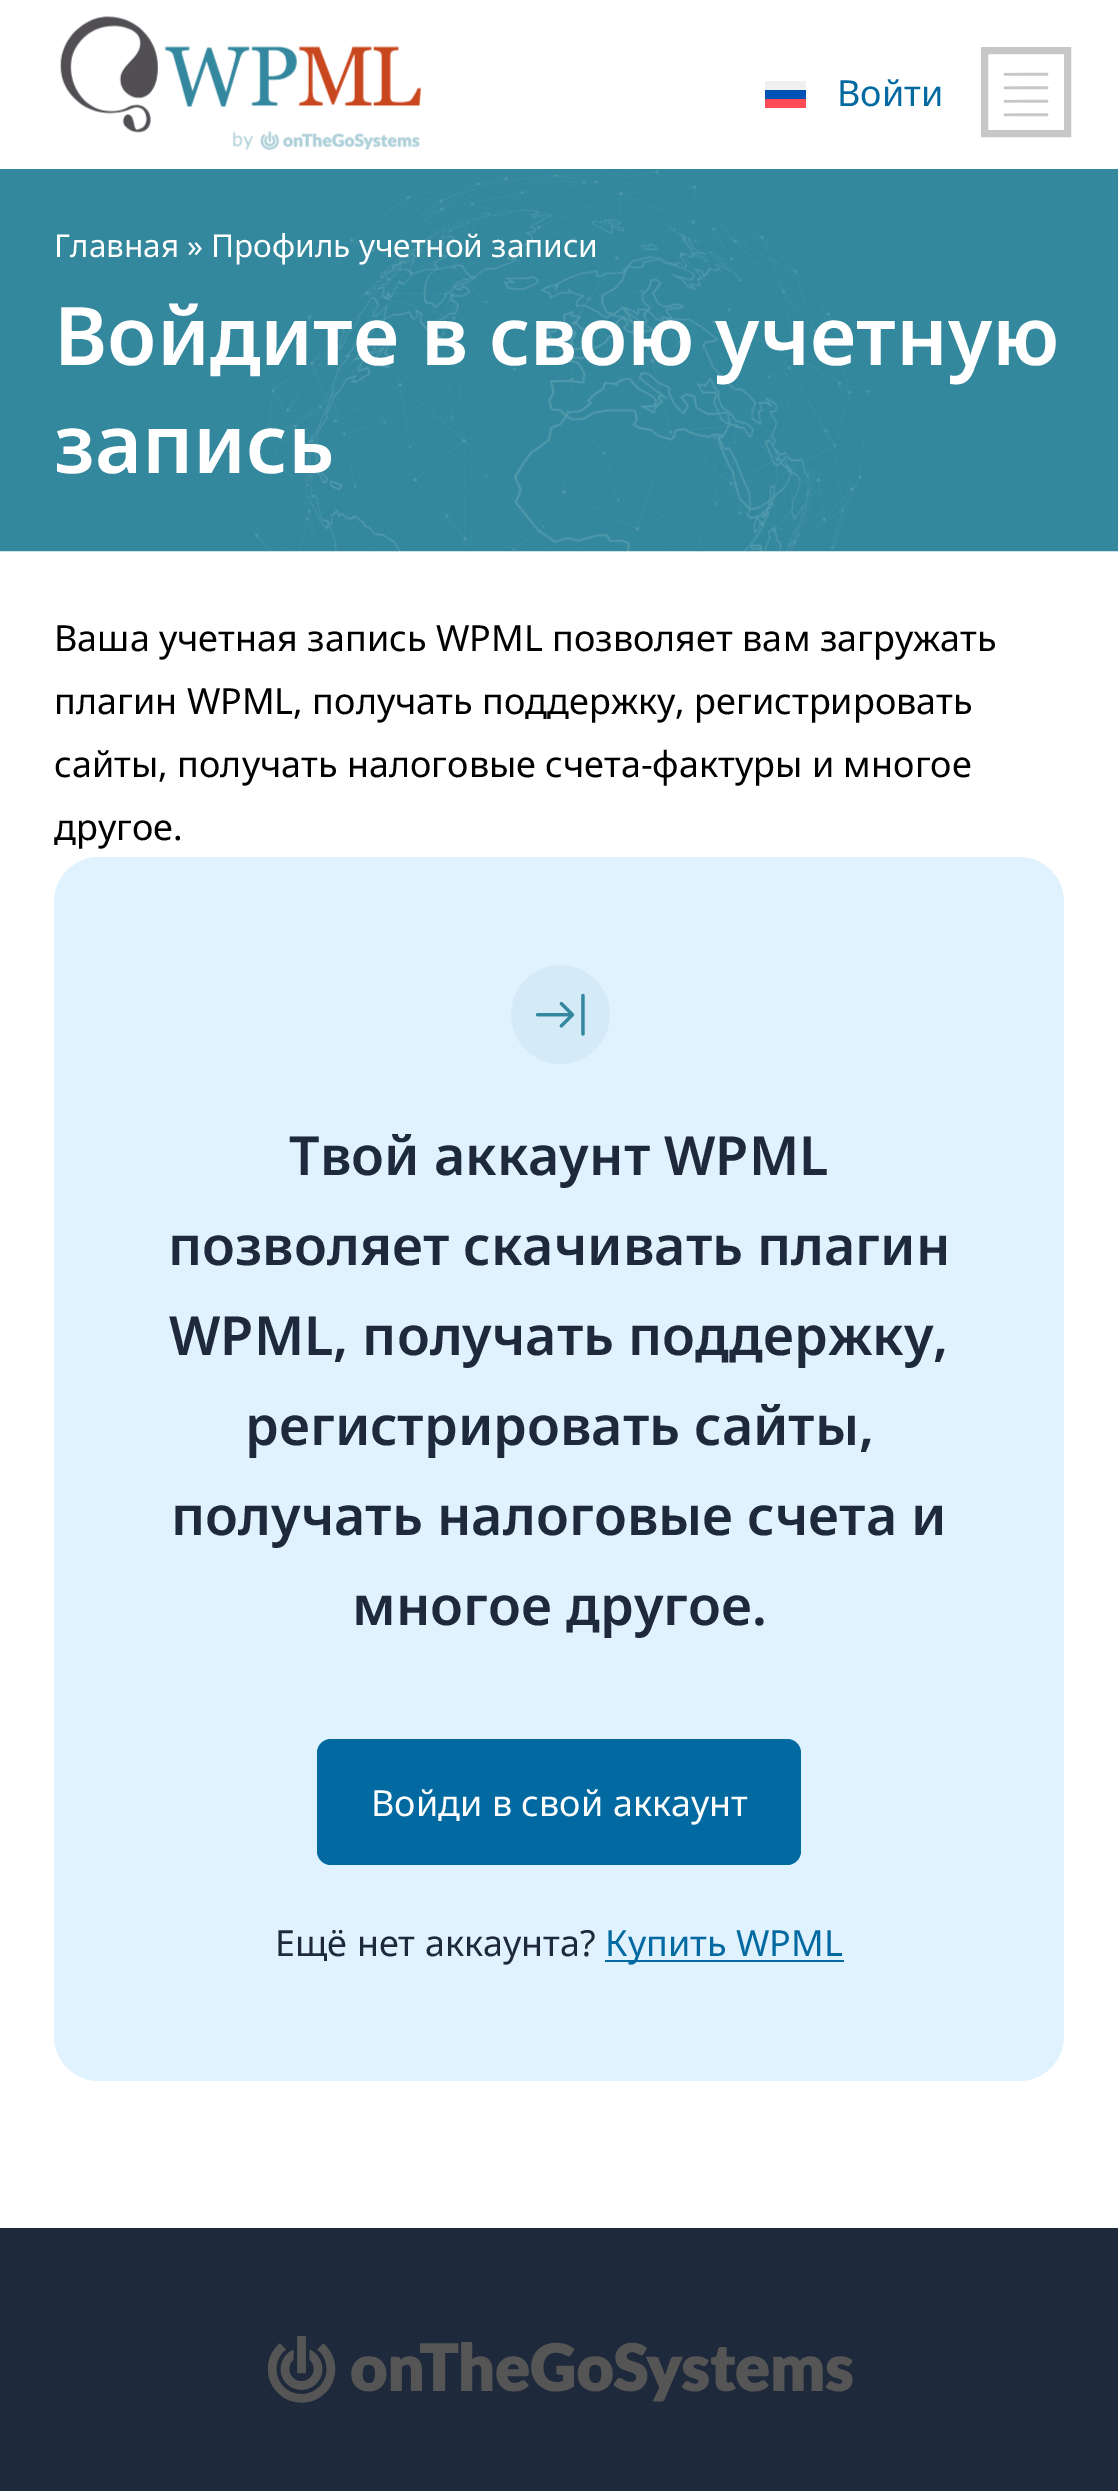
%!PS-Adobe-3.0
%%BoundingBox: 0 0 1118 2491
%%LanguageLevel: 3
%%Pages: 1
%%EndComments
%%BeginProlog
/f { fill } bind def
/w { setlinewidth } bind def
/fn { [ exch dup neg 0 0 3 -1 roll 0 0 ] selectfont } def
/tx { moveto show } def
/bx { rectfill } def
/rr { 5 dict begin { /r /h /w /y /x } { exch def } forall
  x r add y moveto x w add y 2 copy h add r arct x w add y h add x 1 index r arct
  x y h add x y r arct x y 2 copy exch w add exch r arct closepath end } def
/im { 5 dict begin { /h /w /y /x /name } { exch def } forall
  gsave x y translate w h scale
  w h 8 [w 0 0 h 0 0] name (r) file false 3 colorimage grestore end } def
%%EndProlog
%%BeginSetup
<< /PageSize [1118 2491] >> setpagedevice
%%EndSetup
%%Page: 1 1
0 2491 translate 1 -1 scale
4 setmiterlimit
1 setgray
0 0 1118 2491 bx
(image0.raw) 60 16 361 135 im
0.941 setgray
765 81 41 9 bx
0 0.322 0.706 setrgbcolor
765 90 41 9 bx
1 0.294 0.333 setrgbcolor
765 99 41 9 bx
/NotoSans-Regular 36 fn
0.012 0.412 0.631 setrgbcolor
(Войти) 837 106 tx
0.78 setgray
7 w
984.5 50.5 83 83 rectstroke
(image1.raw) 1003 72 46 45 im
(image2.raw) 0 169 1118 383 im
/NotoSans-Regular 31.5 fn
1 setgray
(Главная » Профиль учетной записи) 54 257 tx
/NotoSans-SemiBold 81 fn
(Войдите в свою учетную) 54 365 tx
(запись) 54 473 tx
/NotoSans-Regular 36 fn
0 setgray
(Ваша учетная запись WPML позволяет вам загружать) 54 651 tx
(плагин WPML, получать поддержку, регистрировать) 54 714 tx
(сайты, получать налоговые счета-фактуры и многое) 54 777 tx
(другое.) 54 840 tx
0.878 0.949 0.996 setrgbcolor
54 857 1010 1224 45 rr f
(image3.raw) 511 965 99 99 im
/NotoSans-SemiBold 54 fn
0.118 0.161 0.231 setrgbcolor
(Твой аккаунт WPML) 289 1175 tx
(позволяет скачивать плагин) 168 1265 tx
(WPML, получать поддержку,) 169 1355 tx
(регистрировать сайты,) 245 1445 tx
(получать налоговые счета и) 171 1535 tx
(многое другое.) 352 1625 tx
0.012 0.412 0.631 setrgbcolor
317 1739 484 126 14 rr f
/NotoSans-Regular 36 fn
1 setgray
(Войди в свой аккаунт) 371 1816 tx
0.118 0.161 0.231 setrgbcolor
(Ещё нет аккаунта?) 275 1956 tx
0.012 0.412 0.631 setrgbcolor
605 1960 239 2 bx
(Купить WPML) 605 1956 tx
0.118 0.161 0.231 setrgbcolor
0 2228 1118 263 bx
(image4.raw) 268 2336 585 67 im
showpage
%%EOF
